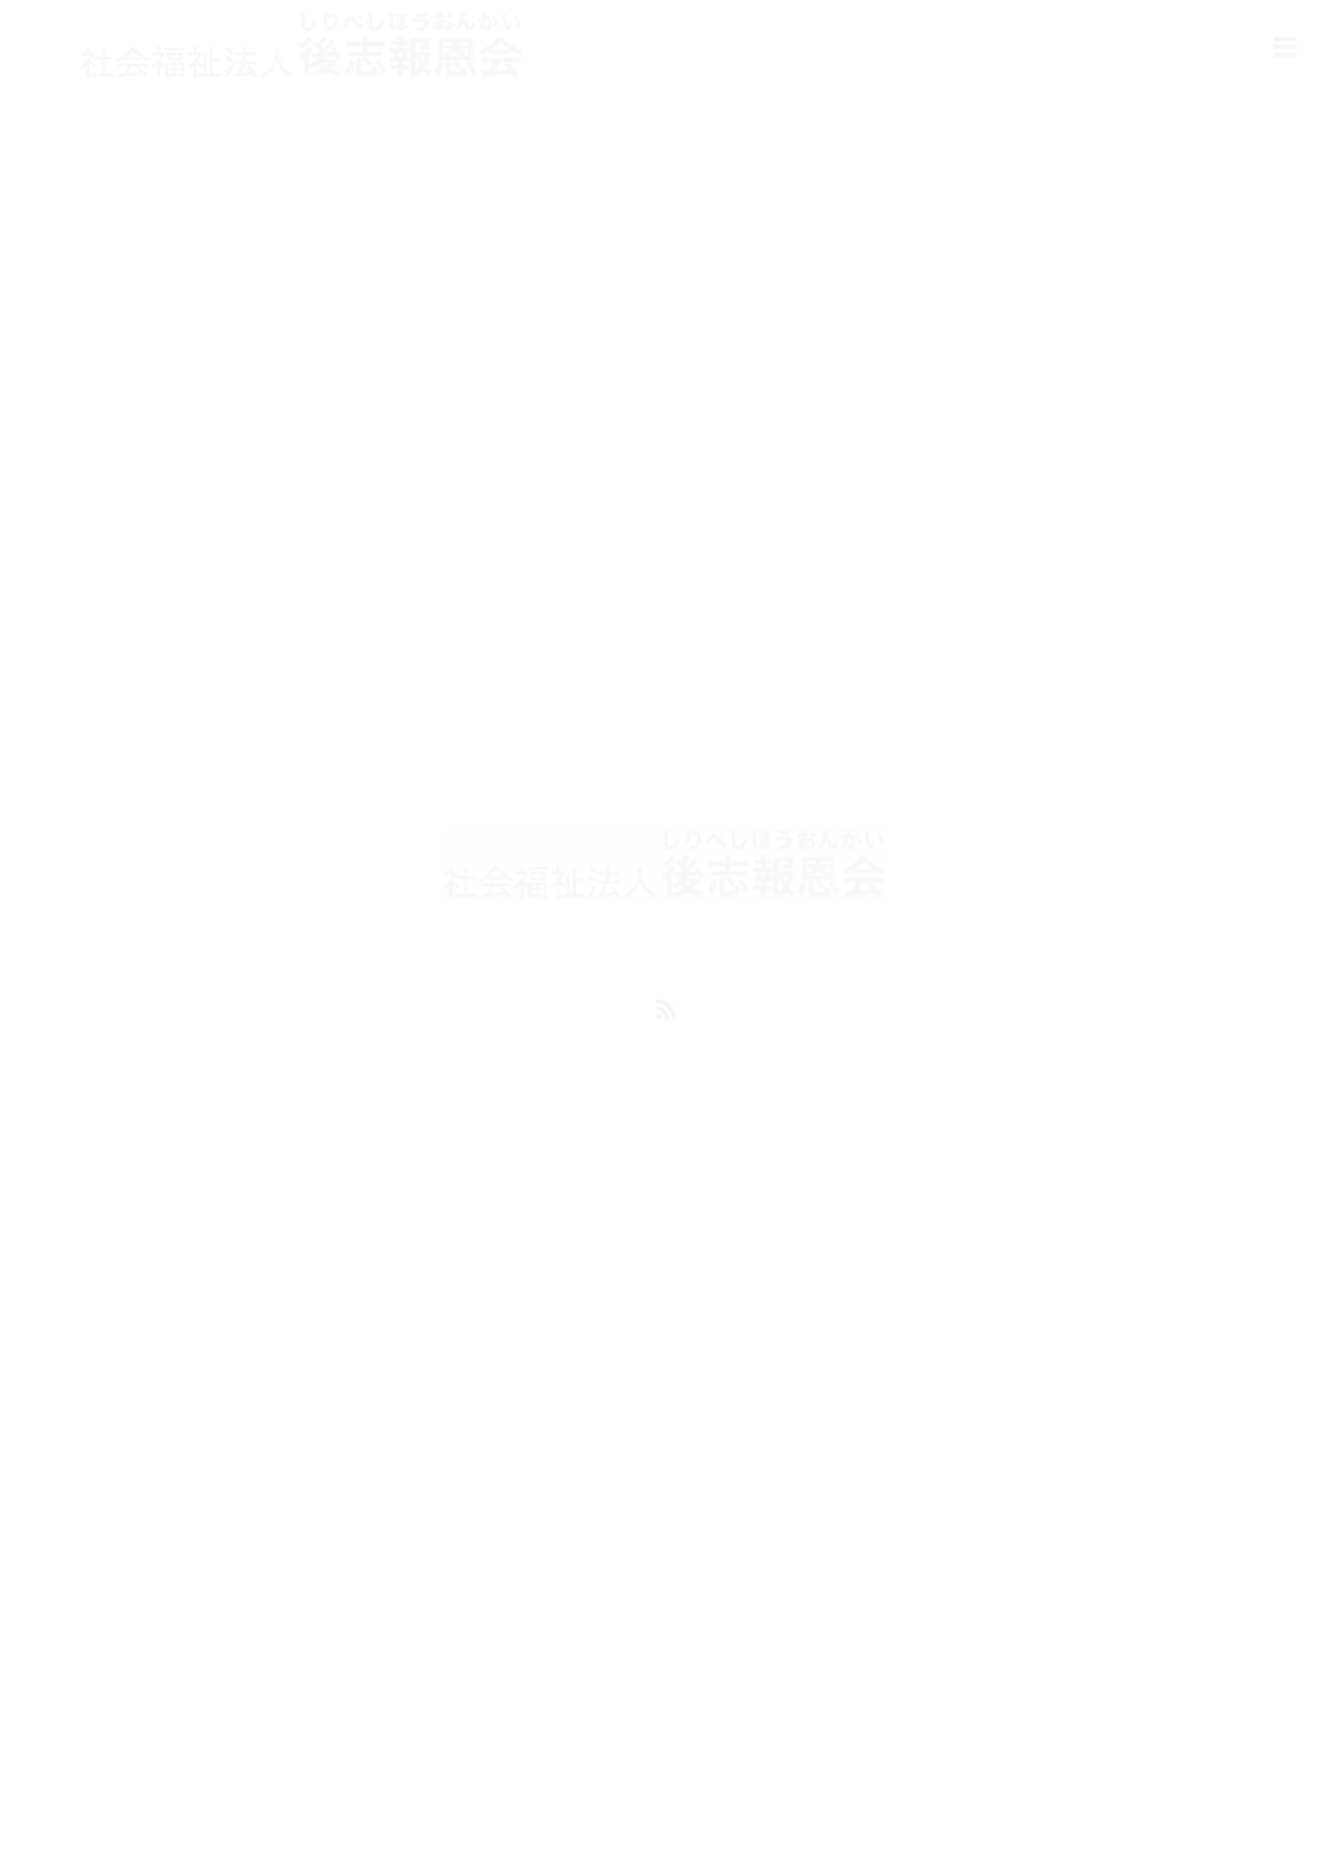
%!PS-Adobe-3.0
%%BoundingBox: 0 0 1330 1871
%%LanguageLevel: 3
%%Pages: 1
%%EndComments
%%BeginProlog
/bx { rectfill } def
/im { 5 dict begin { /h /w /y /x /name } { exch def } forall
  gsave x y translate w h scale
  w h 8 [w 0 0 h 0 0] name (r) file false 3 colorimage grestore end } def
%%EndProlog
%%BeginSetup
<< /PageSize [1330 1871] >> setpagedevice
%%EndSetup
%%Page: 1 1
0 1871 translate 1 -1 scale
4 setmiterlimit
1 setgray
0 0 1330 1871 bx
(image0.raw) 79 11 446 69 im
(image1.raw) 1273 37 24 20 im
(image2.raw) 442 829 446 71 im
(image3.raw) 656 999 20 21 im
showpage
%%EOF
